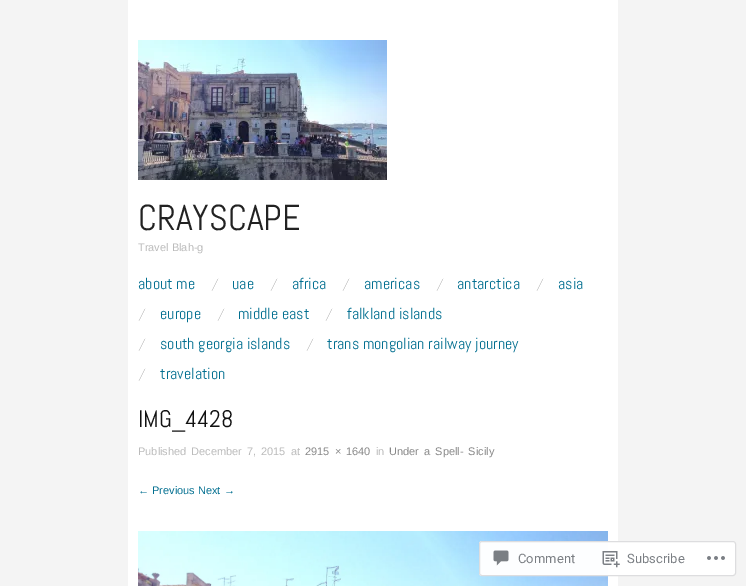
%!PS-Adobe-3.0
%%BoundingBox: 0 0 746 586
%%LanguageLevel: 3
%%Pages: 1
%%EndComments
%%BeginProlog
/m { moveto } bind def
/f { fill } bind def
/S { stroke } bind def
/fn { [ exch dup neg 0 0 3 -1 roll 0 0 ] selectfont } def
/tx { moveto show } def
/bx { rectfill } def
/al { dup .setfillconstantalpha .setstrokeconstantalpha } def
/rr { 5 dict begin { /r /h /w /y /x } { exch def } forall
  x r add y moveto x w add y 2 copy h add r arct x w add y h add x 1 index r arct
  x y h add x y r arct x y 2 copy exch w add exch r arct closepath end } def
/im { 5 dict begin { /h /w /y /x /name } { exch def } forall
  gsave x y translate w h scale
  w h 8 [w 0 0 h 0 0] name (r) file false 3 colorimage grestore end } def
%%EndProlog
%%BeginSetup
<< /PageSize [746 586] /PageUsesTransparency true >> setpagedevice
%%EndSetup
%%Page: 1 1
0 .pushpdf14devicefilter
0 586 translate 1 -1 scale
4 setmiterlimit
0.957 setgray
0 0 746 586 bx
1 setgray
128 0 490 586 bx
(image0.raw) 138 40 249 140 im
/Abel-Regular 36 fn
0.133 setgray
(CRAYSCAPE) 138 230 tx
/LiberationSans-Regular 11 fn
0.733 setgray
(Travel Blah-g) 138 251 tx
/Abel-Regular 16 fn
0.008 0.435 0.565 setrgbcolor
(about me) 138 289 tx
(image1.raw) 211 278 8 13 im
(uae) 232 289 tx
(image1.raw) 270 278 8 13 im
(africa) 292 289 tx
(image1.raw) 342 278 8 13 im
(americas) 364 289 tx
(image1.raw) 436 278 8 13 im
(antarctica) 457 289 tx
(image1.raw) 536 278 8 13 im
(asia) 558 289 tx
(image1.raw) 138 308 8 13 im
(europe) 160 319 tx
(image1.raw) 217 308 8 13 im
(middle east) 238 319 tx
(image1.raw) 325 308 8 13 im
(falkland islands) 347 319 tx
(image1.raw) 138 338 8 13 im
(south georgia islands) 160 349 tx
(image1.raw) 306 338 8 13 im
(trans mongolian railway journey) 327 349 tx
(image1.raw) 138 368 8 13 im
(travelation) 160 379 tx
/Abel-Regular 24 fn
0.067 setgray
(IMG_4428) 138 427 tx
/LiberationSans-Regular 11 fn
0.733 setgray
(Published) 138 455 tx
191 455 m 2 0 32 (December 7, 2015) widthshow
(at) 291 455 tx
0.533 setgray
305 455 m 2 0 32 (2915 × 1640) widthshow
0.733 setgray
(in) 376 455 tx
0.533 setgray
389 455 m 2 0 32 (Under a Spell- Sicily) widthshow
0.008 0.435 0.565 setrgbcolor
(← Previous Next →) 138 494 tx
(image2.raw) 138 531 470 55 im
0.98 al
1 setgray
479 541 257 35 3 rr f
0.863 0.863 0.871 setrgbcolor
479.5 541.5 256 34 2.5 rr S
1 al
(image3.raw) 493 550 16 16 im
/Roboto-Regular 13 fn
0.482 0.498 0.518 setrgbcolor
(Comment) 518 563 tx
(image4.raw) 602 551 18 17 im
(Subscribe) 627 563 tx
(image5.raw) 707 556 18 4 im
.poppdf14devicefilter showpage
%%EOF
